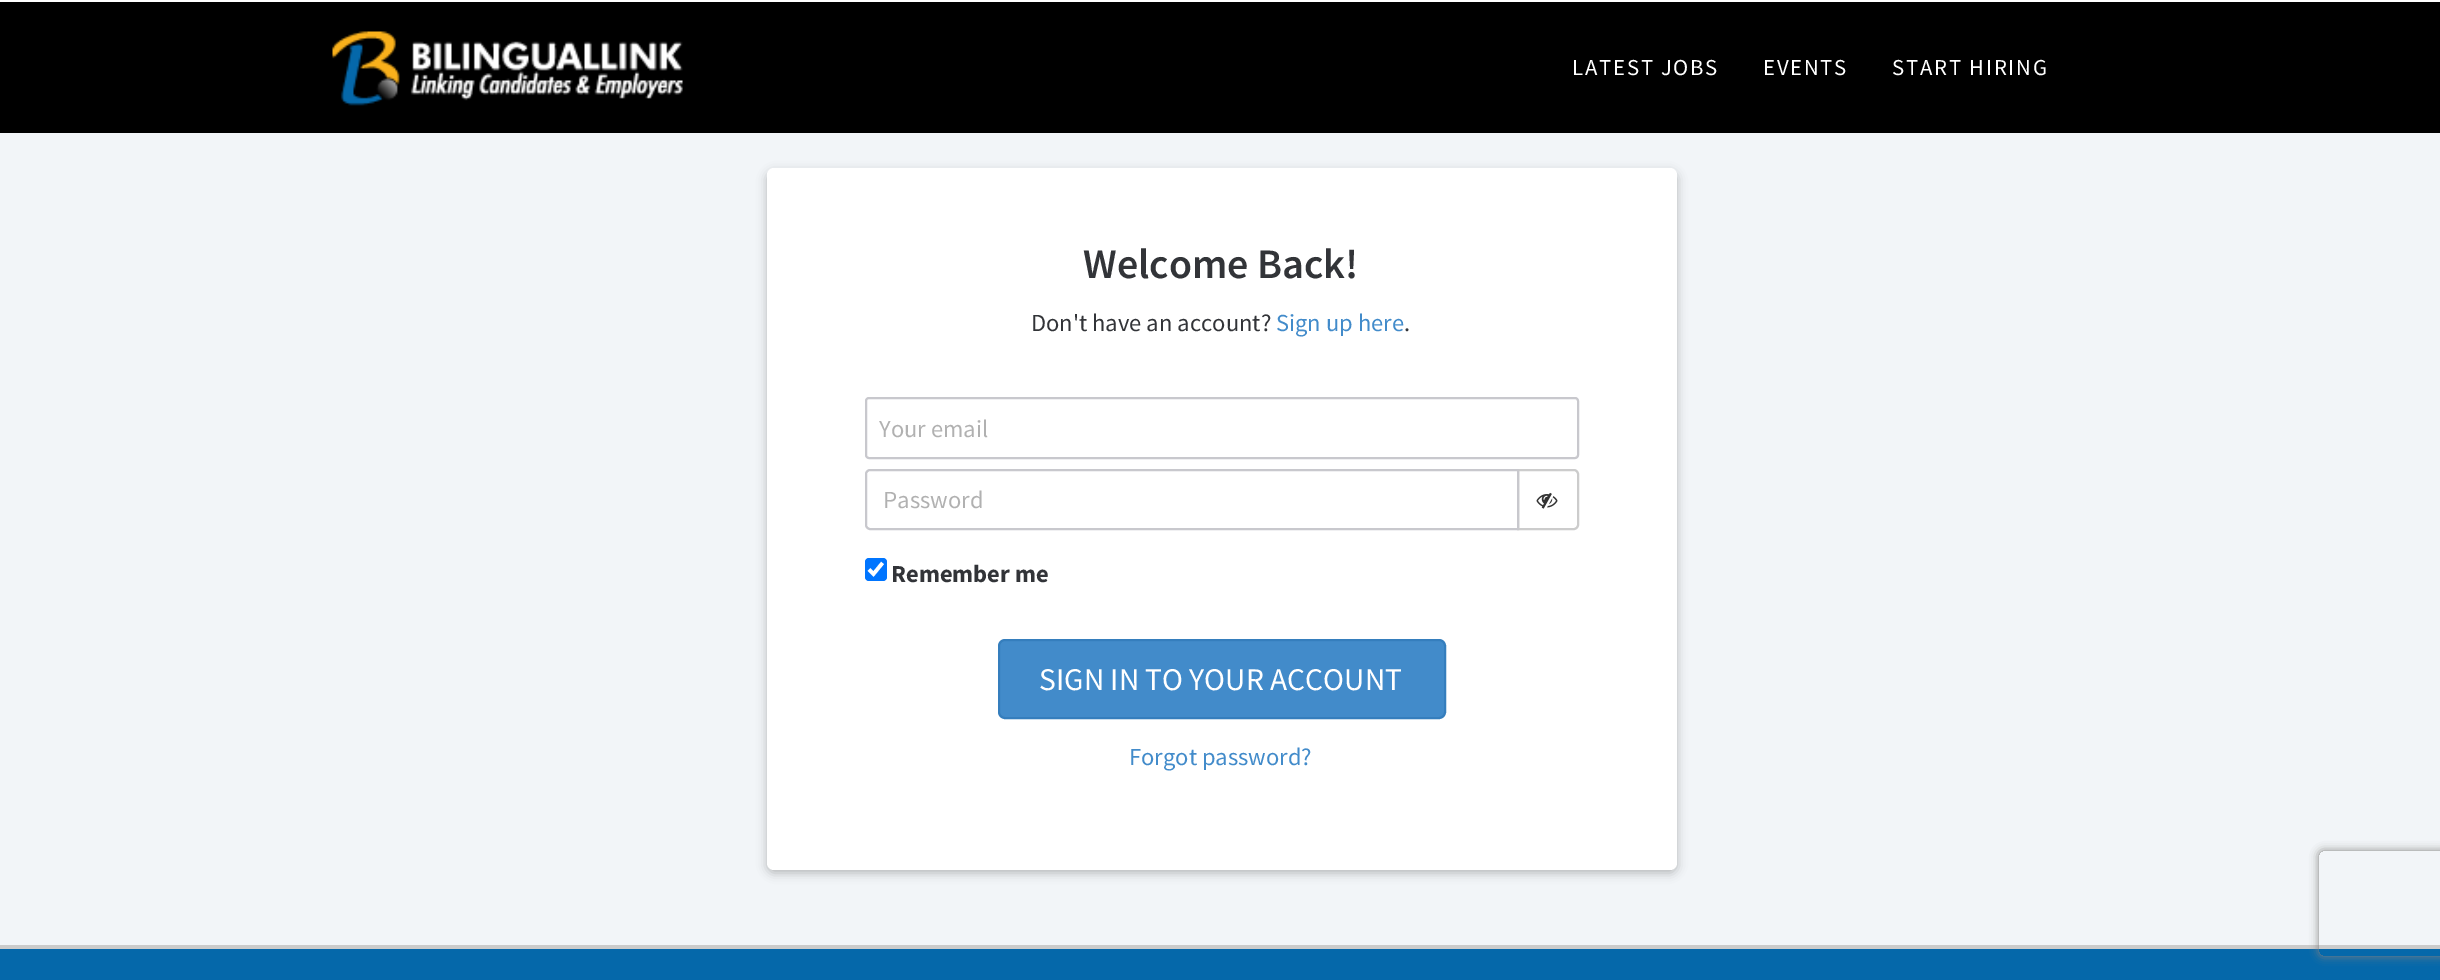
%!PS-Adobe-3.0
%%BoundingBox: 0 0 2440 980
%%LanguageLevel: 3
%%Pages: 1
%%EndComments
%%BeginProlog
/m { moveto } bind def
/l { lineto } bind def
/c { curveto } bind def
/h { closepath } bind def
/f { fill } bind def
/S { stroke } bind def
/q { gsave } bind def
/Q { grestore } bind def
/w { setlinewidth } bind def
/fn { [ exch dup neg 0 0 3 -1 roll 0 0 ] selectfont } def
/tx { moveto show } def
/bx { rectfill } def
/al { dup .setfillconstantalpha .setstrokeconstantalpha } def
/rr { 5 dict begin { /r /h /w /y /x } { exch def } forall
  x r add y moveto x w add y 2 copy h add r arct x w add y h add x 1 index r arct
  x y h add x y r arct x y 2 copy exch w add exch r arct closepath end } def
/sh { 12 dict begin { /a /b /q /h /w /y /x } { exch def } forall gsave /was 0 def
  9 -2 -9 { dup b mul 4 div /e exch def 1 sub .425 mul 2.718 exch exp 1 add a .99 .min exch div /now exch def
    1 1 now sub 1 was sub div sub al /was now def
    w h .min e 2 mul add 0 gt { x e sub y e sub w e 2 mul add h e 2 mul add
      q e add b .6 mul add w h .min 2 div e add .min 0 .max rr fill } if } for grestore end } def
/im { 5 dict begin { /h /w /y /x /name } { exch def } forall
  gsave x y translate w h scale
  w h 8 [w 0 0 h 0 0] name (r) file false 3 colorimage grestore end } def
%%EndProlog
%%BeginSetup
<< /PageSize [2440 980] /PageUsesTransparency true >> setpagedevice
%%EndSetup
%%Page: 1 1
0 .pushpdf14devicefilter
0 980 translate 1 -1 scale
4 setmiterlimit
1 setgray
0 0 2440 980 bx
0 setgray
0 2 2440 131 bx
(image0.raw) 332 31 351 75 im
/SourceSansPro-Regular 22.75 fn
1 setgray
1572 75 m 1.75 0 (LATEST JOBS) ashow
1763 75 m 1.75 0 (EVENTS) ashow
1892 75 m 1.75 0 (START HIRING) ashow
0.949 0.961 0.973 setrgbcolor
0 133 2440 812 bx
0 setgray
767 172 910 701 7 5 0.25 sh
1 setgray
767 168 910 702 7 rr f
/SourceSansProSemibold-SemiBold 42 fn
0.196 0.204 0.22 setrgbcolor
(Welcome Back!) 1083 278 tx
/SourceSansPro-Regular 24.5 fn
(Don't have an account?) 1031 331 tx
0.259 0.545 0.792 setrgbcolor
(Sign up here) 1276 331 tx
0.196 0.204 0.22 setrgbcolor
(.) 1404 331 tx
0.784 0.784 0.804 setrgbcolor
2 w
866 398 712 60 3 rr S
0.694 setgray
(Your email) 879 437 tx
0.8 setgray
1518 470 m 1574 470 l 1576 470 1578 472 1578 474 c 1578 525 l 1578 527 1576 529 1574 529 c 1518 529 l h S
1 setgray
870 470 m 1518 470 l 1518 529 l 870 529 l 868 529 866 527 866 525 c 866 474 l 866 472 868 470 870 470 c h q f Q
0.784 0.784 0.804 setrgbcolor
S
0.694 setgray
(Password) 883 508 tx
(image1.raw) 1536 492 22 17 im
0 0.459 1 setrgbcolor
865 558 22 23 4 rr f
1 setgray
3.6 w
869 569.5 m 873.5 574 l 882.5 563 l S
/SourceSansPro-Bold 24.5 fn
0.196 0.204 0.22 setrgbcolor
(Remember me) 891 582 tx
0.259 0.545 0.792 setrgbcolor
999 640 446 78 6 rr q f Q
0.208 0.494 0.741 setrgbcolor
2 w
S
/SourceSansPro-Regular 31.5 fn
1 setgray
(SIGN IN TO YOUR ACCOUNT) 1039 690 tx
/SourceSansPro-Regular 24.5 fn
0.259 0.545 0.792 setrgbcolor
(Forgot password?) 1129 765 tx
0.796 setgray
0 945 2440 4 bx
0.02 0.408 0.667 setrgbcolor
0 949 2440 31 bx
q
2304 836 m 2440 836 l 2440 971 l 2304 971 l h 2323 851 m 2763 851 l 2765 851 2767 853 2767 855 c 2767 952 l 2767 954 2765 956 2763 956 c 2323 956 l 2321 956 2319 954 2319 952 c 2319 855 l 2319 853 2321 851 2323 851 c h eoclip newpath
0.502 setgray
2319 851 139 105 4 4.5 1 sh
Q
.poppdf14devicefilter showpage
%%EOF
